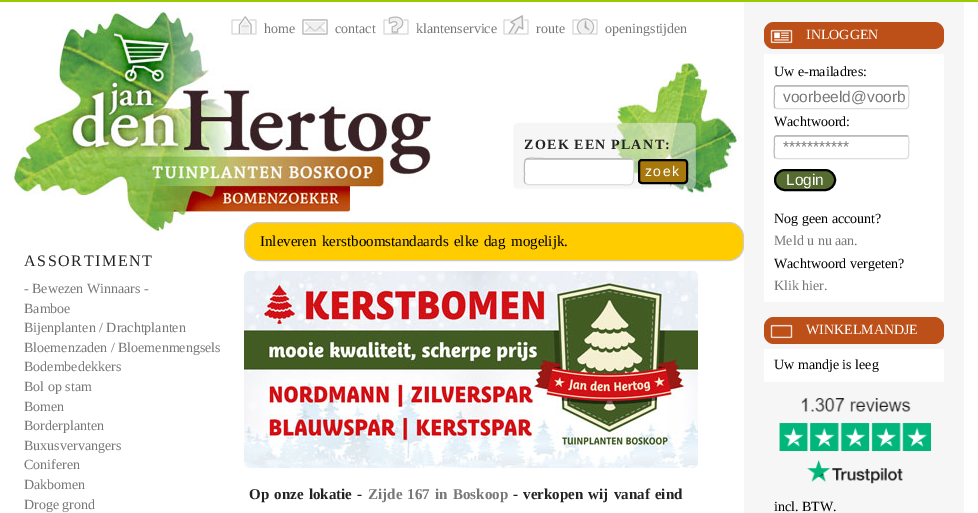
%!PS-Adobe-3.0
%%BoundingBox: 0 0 978 513
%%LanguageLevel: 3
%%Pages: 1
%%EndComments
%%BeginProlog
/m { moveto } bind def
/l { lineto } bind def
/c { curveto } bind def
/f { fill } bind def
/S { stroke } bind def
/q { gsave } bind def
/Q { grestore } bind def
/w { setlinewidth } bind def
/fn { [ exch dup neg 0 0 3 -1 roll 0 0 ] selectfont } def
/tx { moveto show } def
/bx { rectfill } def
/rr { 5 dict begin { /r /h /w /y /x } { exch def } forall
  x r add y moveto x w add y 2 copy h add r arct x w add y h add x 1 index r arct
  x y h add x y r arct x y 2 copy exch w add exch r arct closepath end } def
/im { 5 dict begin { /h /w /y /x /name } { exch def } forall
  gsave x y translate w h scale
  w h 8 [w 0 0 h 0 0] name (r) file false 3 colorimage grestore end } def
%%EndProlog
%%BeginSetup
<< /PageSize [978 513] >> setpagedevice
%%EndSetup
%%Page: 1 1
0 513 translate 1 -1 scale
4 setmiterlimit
1 setgray
0 0 978 513 bx
0.6 0.8 0 setrgbcolor
0 0 978 2 bx
(image0.raw) 14 12 417 219 im
(image1.raw) 231 16 28 19 im
/LiberationSerif-Regular 14 fn
0.467 setgray
(home) 264 33 tx
(image2.raw) 302 15 28 20 im
(contact) 335 33 tx
(image3.raw) 383 16 26 19 im
(klantenservice) 416 33 tx
(image4.raw) 503 15 28 20 im
(route) 536 33 tx
(image5.raw) 572 16 28 19 im
(openingstijden) 605 33 tx
/LiberationSerif-Regular 16 fn
0.133 setgray
24 266 m 1.6 0 (ASSORTIMENT) ashow
/LiberationSerif-Regular 14 fn
0.467 setgray
(- Bewezen Winnaars -) 24 293 tx
(Bamboe) 24 313 tx
(Bijenplanten / Drachtplanten) 24 332 tx
(Bloemenzaden / Bloemenmengsels) 24 352 tx
(Bodembedekkers) 24 371 tx
(Bol op stam) 24 391 tx
(Bomen) 24 411 tx
(Borderplanten) 24 430 tx
(Buxusvervangers) 24 450 tx
(Coniferen) 24 469 tx
(Dakbomen) 24 489 tx
(Droge grond) 24 509 tx
(image6.raw) 513 63 229 134 im
/LiberationSerif-Bold 14 fn
0.133 setgray
524 149 m -1 0 32 1.4 0 (ZOEK EEN PLANT:) awidthshow
1 setgray
524 158 110 27 4 rr f
(image7.raw) 524 159 110 1 im
0.867 setgray
632.5 159.5 m 634.5 161.5 633.5 166 633.5 168.5 c 633.5 188.5 636 184.5 613 184.5 c 527.5 184.5 l 525.5 183.5 l S
0.733 setgray
525.5 183.5 m 523.5 181.5 524.5 177 524.5 174.5 c 524.5 154.5 522 158.5 545 158.5 c 630.5 158.5 l 632.5 159.5 l S
0.655 0.475 0.047 setrgbcolor
639 160 48 23 3 rr q f Q
0 setgray
2 w
S
/LiberationSans-Regular 14 fn
1 setgray
645 176 m 1.4 0 (zoek) ashow
1 0.8 0 setrgbcolor
244.5 222.5 499 38 14.5 rr q f Q
0.8 setgray
1 w
S
/LiberationSerif-Regular 15 fn
0 setgray
260 246 m 1.5 0 32 (Inleveren kerstboomstandaards elke dag mogelijk.) widthshow
(image8.raw) 244 271 454 197 im
/LiberationSerif-Bold 15 fn
0.133 setgray
249 499 m 1.5 0 32 (Op onze lokatie -) widthshow
0.467 setgray
368 499 m 1.5 0 32 (Zijde 167 in Boskoop) widthshow
0.133 setgray
513 499 m 1.5 0 32 (- verkopen wij vanaf eind) widthshow
0.965 setgray
744 2 220 511 bx
0.741 0.31 0.094 setrgbcolor
764 22 180 27 10 rr f
(image9.raw) 770 29 23 15 im
/LiberationSerif-Regular 14 fn
1 setgray
(INLOGGEN) 806 39 tx
764 54 180 248 bx
0 setgray
(Uw e-mailadres:) 774 76 tx
(image10.raw) 774 86 135 1 im
0.867 setgray
908 86 m 909.5 88 908.5 97.5 908.5 100 c 908.5 102 910 108.5 906 108.5 c 777 108.5 l 775 108 l S
0.733 setgray
775 108 m 773.5 106 774.5 96.5 774.5 94 c 774.5 92 773 85.5 777 85.5 c 906 85.5 l 908 86 l S
/LiberationSans-Regular 15.5 fn
0.467 setgray
(voorbeeld@voorb) 783 102 tx
/LiberationSerif-Regular 14 fn
0 setgray
(Wachtwoord:) 774 126 tx
(image10.raw) 774 136 135 1 im
0.867 setgray
908 136 m 909.5 138 908.5 147.5 908.5 150 c 908.5 152 910 158.5 906 158.5 c 777 158.5 l 775 158 l S
0.733 setgray
775 158 m 773.5 156 774.5 146.5 774.5 144 c 774.5 142 773 135.5 777 135.5 c 906 135.5 l 908 136 l S
/LiberationSans-Regular 15.5 fn
0.467 setgray
(***********) 783 152 tx
0.333 0.42 0.184 setrgbcolor
775 170 60 20 10 rr q f Q
0 setgray
2 w
S
1 setgray
(Login) 786 185 tx
/LiberationSerif-Regular 14 fn
0 setgray
(Nog geen account?) 774 223 tx
0.467 setgray
(Meld u nu aan.) 774 245 tx
0 setgray
(Wachtwoord vergeten?) 774 268 tx
0.467 setgray
(Klik hier.) 774 290 tx
0.741 0.31 0.094 setrgbcolor
764 317 180 27 10 rr f
(image11.raw) 770 324 23 15 im
1 setgray
(WINKELMANDJE) 806 334 tx
764 349 180 33 bx
0 setgray
(Uw mandje is leeg) 774 369 tx
(image12.raw) 776 398 155 87 im
(incl. BTW.) 774 511 tx
showpage
%%EOF
